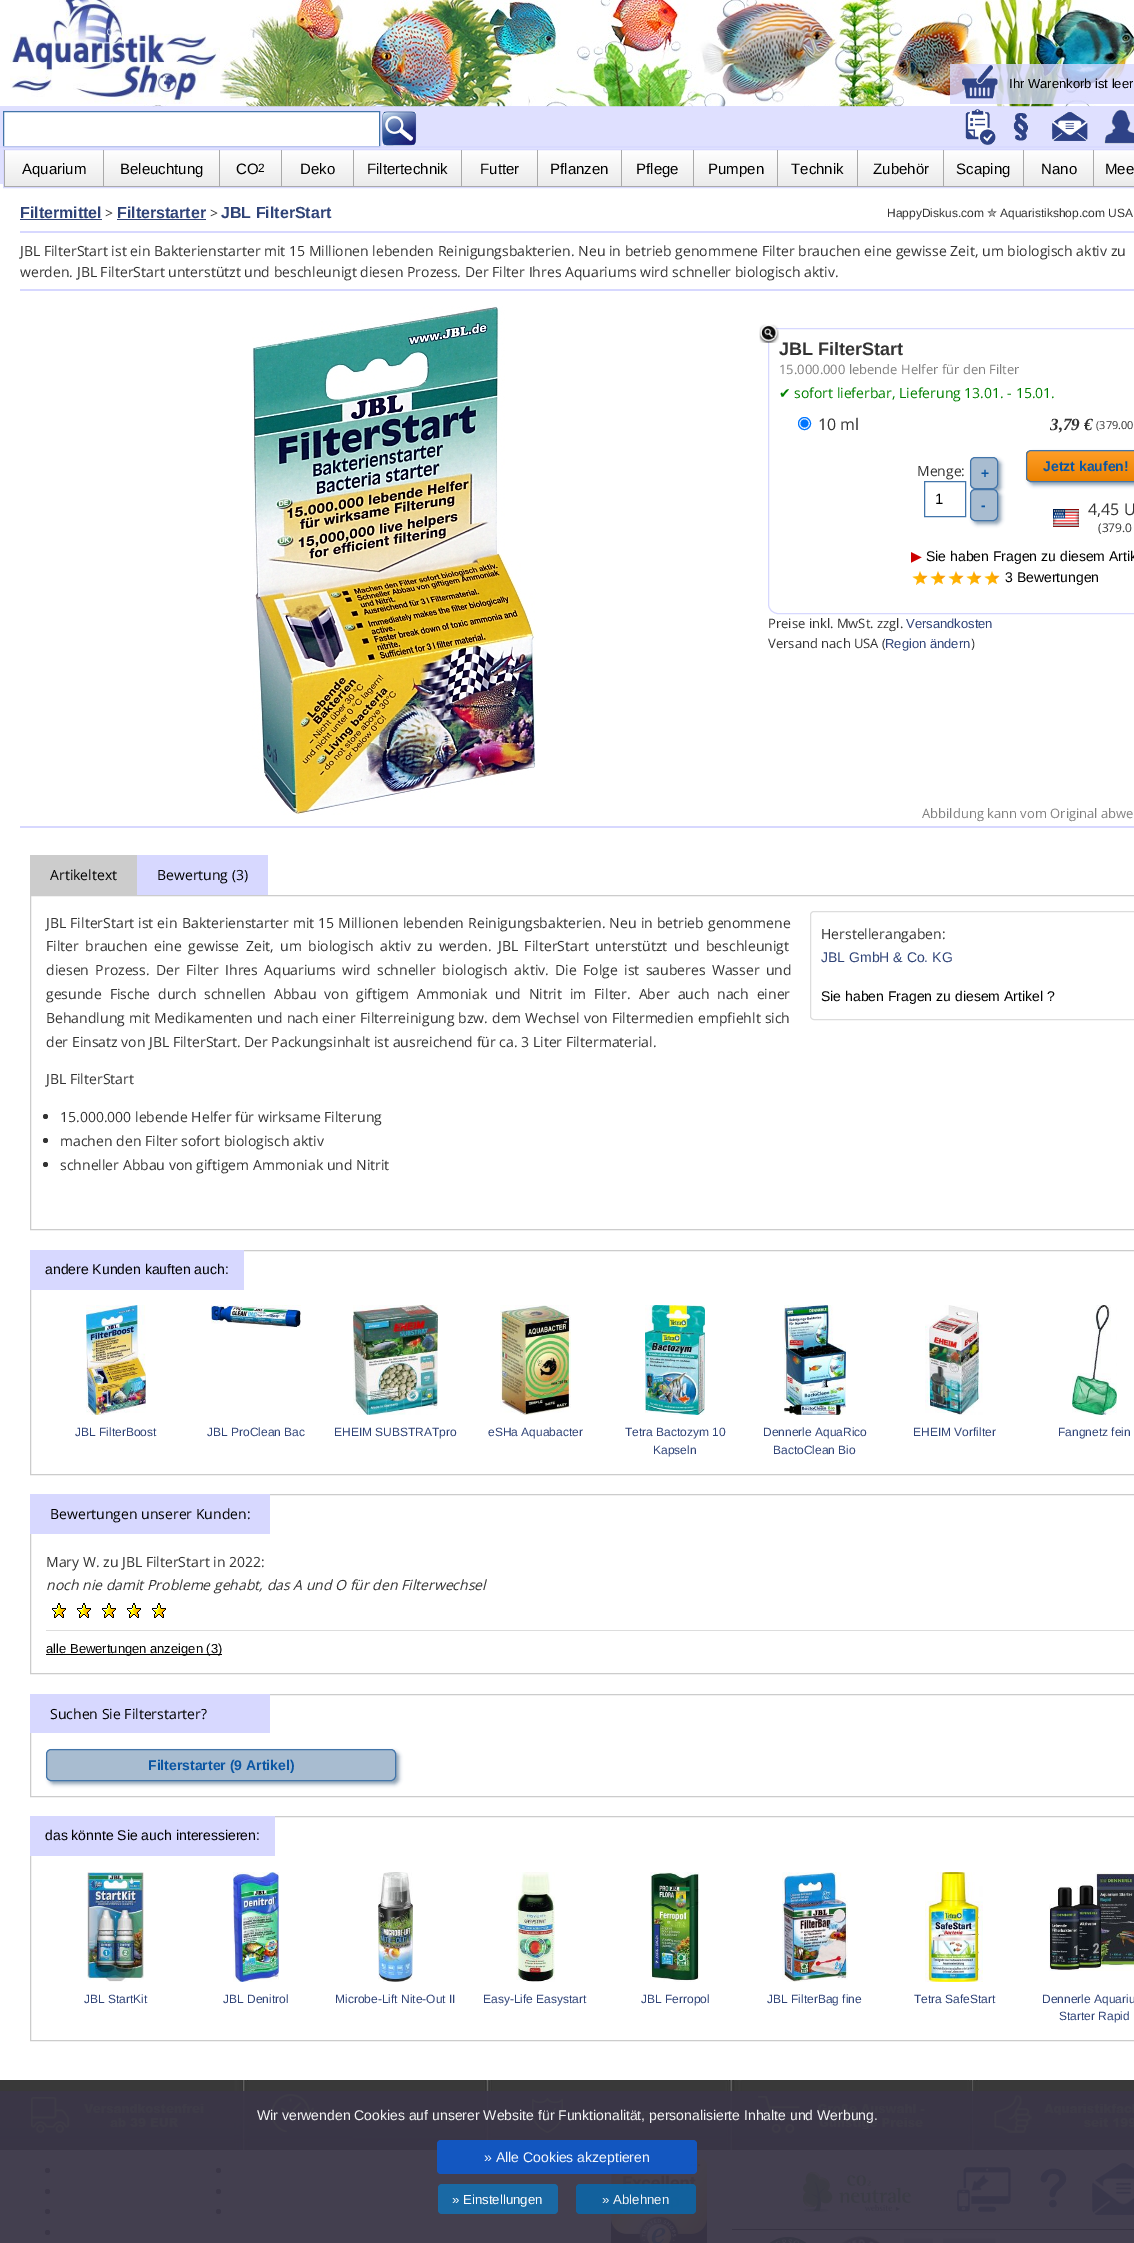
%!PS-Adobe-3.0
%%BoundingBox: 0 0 1134 2243
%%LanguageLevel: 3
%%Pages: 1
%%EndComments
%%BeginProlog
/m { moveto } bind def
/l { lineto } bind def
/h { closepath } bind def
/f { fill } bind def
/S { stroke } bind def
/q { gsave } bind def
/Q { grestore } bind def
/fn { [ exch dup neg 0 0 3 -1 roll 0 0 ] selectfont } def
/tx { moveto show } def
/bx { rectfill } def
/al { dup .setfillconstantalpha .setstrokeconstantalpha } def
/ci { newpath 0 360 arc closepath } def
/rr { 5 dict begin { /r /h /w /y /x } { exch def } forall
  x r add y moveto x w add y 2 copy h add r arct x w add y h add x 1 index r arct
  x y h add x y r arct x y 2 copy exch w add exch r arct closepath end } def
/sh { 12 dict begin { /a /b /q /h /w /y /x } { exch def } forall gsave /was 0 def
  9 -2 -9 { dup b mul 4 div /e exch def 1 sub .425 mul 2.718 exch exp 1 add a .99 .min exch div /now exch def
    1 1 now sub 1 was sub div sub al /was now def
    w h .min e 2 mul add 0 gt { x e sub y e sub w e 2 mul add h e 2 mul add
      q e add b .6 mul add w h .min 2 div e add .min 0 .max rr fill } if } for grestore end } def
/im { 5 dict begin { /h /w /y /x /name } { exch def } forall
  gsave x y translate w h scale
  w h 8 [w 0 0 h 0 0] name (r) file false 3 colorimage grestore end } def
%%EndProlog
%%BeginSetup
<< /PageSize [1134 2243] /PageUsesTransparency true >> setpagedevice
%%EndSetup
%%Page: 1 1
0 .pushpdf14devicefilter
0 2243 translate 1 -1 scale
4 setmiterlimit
1 setgray
0 0 1134 2243 bx
(image0.raw) 144 0 990 107 im
(image1.raw) 10 0 210 104 im
0.8 al
0.843 0.847 1 setrgbcolor
950 64 184 40 bx
1 al
(image2.raw) 962 65 36 34 im
/LiberationSans-Regular 13 fn
0 setgray
(Ihr Warenkorb ist leer) 1009 88 tx
0.8 al
0.843 0.847 1 setrgbcolor
0 106 1134 42 bx
1 al
1 setgray
3.5 111.5 m 379.5 111.5 l 379.5 146.5 l 3.5 146.5 l h q f Q
0.259 0.459 0.667 setrgbcolor
S
(image3.raw) 382 111 35 35 im
(image4.raw) 965 109 31 36 im
(image5.raw) 1013 113 15 28 im
(image6.raw) 1052 112 36 29 im
(image7.raw) 1104 109 30 35 im
0.8 al
0.843 0.847 1 setrgbcolor
0 146 1134 38 bx
1 al
q 5 150 m 1134 150 l 1134 186 l 5 186 l h clip newpath
<< /ShadingType 2 /ColorSpace /DeviceRGB /Coords [600 150 600 187] /Extend [true true] /Function << /FunctionType 2 /Domain [0 1] /C0 [1 1 1] /C1 [0.918 0.918 0.918] /N 1 >> >> shfill Q
3.5 149.5 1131 38 rectstroke
0.667 setgray
103 150 1 37 bx
4 186 100 1 bx
4 150 1 37 bx
/LiberationSans-Regular 15 fn
0 setgray
(Aquarium) 22 174 tx
0.667 setgray
219 150 1 37 bx
104 186 116 1 bx
0 setgray
(Beleuchtung) 120 174 tx
0.667 setgray
281 150 1 37 bx
220 186 62 1 bx
0 setgray
(CO) 236 174 tx
/LiberationSans-Regular 12 fn
(2) 258 172 tx
0.667 setgray
353 150 1 37 bx
282 186 72 1 bx
/LiberationSans-Regular 15 fn
0 setgray
(Deko) 300 174 tx
0.667 setgray
461 150 1 37 bx
354 186 108 1 bx
0 setgray
(Filtertechnik) 367 174 tx
0.667 setgray
537 150 1 37 bx
462 186 76 1 bx
0 setgray
(Futter) 480 174 tx
0.667 setgray
621 150 1 37 bx
538 186 84 1 bx
0 setgray
(Pflanzen) 550 174 tx
0.667 setgray
693 150 1 37 bx
622 186 72 1 bx
0 setgray
(Pflege) 636 174 tx
0.667 setgray
777 150 1 37 bx
694 186 84 1 bx
0 setgray
(Pumpen) 708 174 tx
0.667 setgray
857 150 1 37 bx
778 186 80 1 bx
0 setgray
(Technik) 791 174 tx
0.667 setgray
943 150 1 37 bx
858 186 86 1 bx
0 setgray
(Zubehör) 873 174 tx
0.667 setgray
1023 150 1 37 bx
944 186 80 1 bx
0 setgray
(Scaping) 956 174 tx
0.667 setgray
1093 150 1 37 bx
1024 186 110 1 bx
0 setgray
(Nano) 1041 174 tx
(Mee) 1105 174 tx
/LiberationSans-Bold 16 fn
0.184 0.263 0.467 setrgbcolor
(Filtermittel) 20 218 tx
20 219 82 1 bx
/OpenSans-Regular 14 fn
0.2 setgray
(>) 105 218 tx
/LiberationSans-Bold 16 fn
0.184 0.263 0.467 setrgbcolor
(Filterstarter) 117 218 tx
117 219 89 1 bx
/OpenSans-Regular 14 fn
0.2 setgray
(>) 210 218 tx
/LiberationSans-Bold 16 fn
0.184 0.263 0.467 setrgbcolor
(JBL FilterStart) 221 218 tx
/LiberationSans-Regular 12 fn
0.2 setgray
(HappyDiskus.com) 887 217 tx
/DejaVuSans-Regular 12 fn
(✮) 987 217 tx
/LiberationSans-Regular 12 fn
(Aquaristikshop.com USA) 1000 217 tx
0.843 0.847 1 setrgbcolor
20 231 1114 2 bx
/OpenSans-Regular 14 fn
0.2 setgray
(JBL FilterStart ist ein Bakterienstarter mit 15 Millionen lebenden Reinigungsbakterien. Neu in betrieb genommene Filter brauchen eine gewisse Zeit, um biologisch aktiv zu) 20 256 tx
(werden. JBL FilterStart unterstützt und beschleunigt diesen Prozess. Der Filter Ihres Aquariums wird schneller biologisch aktiv.) 20 277 tx
0.843 0.847 1 setrgbcolor
20 289 1114 2 bx
(image8.raw) 252 306 284 509 im
768.5 328.5 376 285 9.5 rr S
(image9.raw) 759 324 20 19 im
/LiberationSans-Bold 18 fn
0.2 setgray
(JBL FilterStart) 779 355 tx
/OpenSans-Regular 13 fn
0.502 setgray
(15.000.000 lebende Helfer für den Filter) 779 374 tx
/DejaVuSans-Regular 14 fn
0 0.502 0 setrgbcolor
(✔) 779 398 tx
/OpenSans-Regular 14 fn
(sofort lieferbar, Lieferung 13.01. - 15.01.) 794 398 tx
0 0.459 1 setrgbcolor
804.5 423.5 6 ci S
804.5 423.5 4 ci f
/OpenSans-Regular 16 fn
0.2 setgray
(10 ml) 818 430 tx
/LiberationSerif-BoldItalic 17 fn
(3,79 €) 1050 430 tx
/OpenSans-Regular 11 fn
(\(379.00) 1096 429 tx
/OpenSans-Regular 14 fn
(Menge:) 917 476 tx
0.259 0.459 0.667 setrgbcolor
924.5 481.5 41 35 rectstroke
/LiberationSans-Regular 15 fn
0 setgray
(1) 935 504 tx
0.549 0.627 0.698 setrgbcolor
973 460 28 32 5 2 1 sh
0.659 0.737 0.816 setrgbcolor
970.5 457.5 27 31 4.5 rr q f Q
0.259 0.459 0.667 setrgbcolor
S
/LiberationSans-Bold 14 fn
0.043 0.337 0.639 setrgbcolor
(+) 981 478 tx
0.549 0.627 0.698 setrgbcolor
973 492 28 32 5 2 1 sh
0.659 0.737 0.816 setrgbcolor
970.5 489.5 27 31 4.5 rr q f Q
0.259 0.459 0.667 setrgbcolor
S
0.043 0.337 0.639 setrgbcolor
(-) 981 510 tx
0.549 0.627 0.698 setrgbcolor
1029 453 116 32 5 2 1 sh
q
1026 450 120 32 5 rr clip newpath
q 1026 451 m 1134 451 l 1134 481 l 1026 481 l h clip newpath
<< /ShadingType 2 /ColorSpace /DeviceRGB /Coords [1086 451 1086 481] /Extend [true true] /Function << /FunctionType 2 /Domain [0 1] /C0 [1 0.62 0.153] /C1 [0.925 0.51 0] /N 1 >> >> shfill Q
Q
0.259 0.459 0.667 setrgbcolor
1026.5 450.5 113 31 4.5 rr S
0.043 0.337 0.639 setrgbcolor
(Jetzt kaufen!) 1043 471 tx
(image10.raw) 1053 509 26 18 im
/OpenSans-Regular 16 fn
0.2 setgray
(4,45 U) 1088 515 tx
/OpenSans-Regular 12 fn
(\(379.0) 1098 532 tx
/DejaVuSans-Regular 14 fn
0.8 0 0 setrgbcolor
(▶) 911 561 tx
/LiberationSans-Regular 14 fn
0 setgray
(Sie haben Fragen zu diesem Artik) 926 561 tx
(image11.raw) 912 571 88 14 im
(3 Bewertungen) 1005 582 tx
/OpenSans-Regular 13 fn
0.2 setgray
(Preise inkl. MwSt. zzgl.) 768 628 tx
/LiberationSans-Regular 13 fn
0.184 0.263 0.467 setrgbcolor
(Versandkosten) 906 628 tx
/OpenSans-Regular 13 fn
0.2 setgray
(Versand nach USA \() 768 648 tx
/LiberationSans-Regular 13 fn
0.184 0.263 0.467 setrgbcolor
(Region ändern) 885 648 tx
/OpenSans-Regular 13 fn
0.2 setgray
(\)) 971 648 tx
0.502 setgray
(Abbildung kann vom Original abwe) 922 818 tx
0.843 0.847 1 setrgbcolor
20 826 1114 2 bx
0.8 setgray
30 855 107 40 bx
/OpenSans-Regular 14 fn
0 setgray
(Artikeltext) 50 880 tx
0.843 0.847 1 setrgbcolor
137 855 131 40 bx
0 setgray
(Bewertung \(3\)) 157 880 tx
0.8 setgray
30.5 895.5 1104 334 rectstroke
0.2 setgray
46 928 m 0.5 0 32 (JBL FilterStart) widthshow
138 928 m 0.5 0 32 (ist ein) widthshow
182 928 m 0.5 0 32 (Bakterienstarter mit 15 Millionen lebenden Reinigungsbakterien. Neu in betrieb genommene) widthshow
46 951 m 2.75 0 32 (Filter brauchen eine gewisse Zeit, um biologisch aktiv zu werden. JBL FilterStart unterstützt und beschleunigt) widthshow
46 975 m 2.75 0 32 (diesen Prozess. Der Filter Ihres Aquariums wird schneller biologisch aktiv. Die Folge ist sauberes Wasser und) widthshow
46 999 m 4.25 0 32 (gesunde Fische durch schnellen Abbau von giftigem Ammoniak und Nitrit im Filter. Aber auch nach einer) widthshow
46 1023 m 0.4 0 32 (Behandlung mit Medikamenten und nach einer Filterreinigung bzw. dem Wechsel von Filtermedien empfiehlt sich) widthshow
(der Einsatz von JBL FilterStart. Der Packungsinhalt ist ausreichend für ca. 3 Liter Filtermaterial.) 46 1047 tx
(JBL FilterStart) 46 1084 tx
45.5 1116.5 2.5 ci f
(15.000.000 lebende Helfer für wirksame Filterung) 60 1122 tx
45.5 1140.5 2.5 ci f
(machen den Filter sofort biologisch aktiv) 60 1146 tx
45.5 1164.5 2.5 ci f
(schneller Abbau von giftigem Ammoniak und Nitrit) 60 1170 tx
0.867 setgray
810.5 911.5 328 108 3.5 rr S
0.2 setgray
(Herstellerangaben:) 821 939 tx
/LiberationSans-Regular 14 fn
0.184 0.263 0.467 setrgbcolor
(JBL GmbH & Co. KG) 821 962 tx
0 setgray
(Sie haben Fragen zu diesem Artikel ?) 821 1001 tx
0.8 setgray
30.5 1250.5 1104 224 rectstroke
0.843 0.847 1 setrgbcolor
30 1250 214 40 bx
0 setgray
(andere Kunden kauften auch:) 45 1274 tx
(image12.raw) 86 1305 60 110 im
/LiberationSans-Regular 12 fn
0.184 0.263 0.467 setrgbcolor
(JBL FilterBoost) 75 1436 tx
(image13.raw) 211 1305 90 23 im
(JBL ProClean Bac) 207 1436 tx
(image14.raw) 353 1305 85 110 im
(EHEIM SUBSTRATpro) 334 1436 tx
(image15.raw) 500 1305 71 110 im
(eSHa Aquabacter) 488 1436 tx
(image16.raw) 645 1305 60 110 im
(Tetra Bactozym 10) 625 1436 tx
(Kapseln) 653 1454 tx
(image17.raw) 784 1305 62 110 im
(Dennerle AquaRico) 763 1436 tx
(BactoClean Bio) 773 1454 tx
(image18.raw) 925 1305 58 110 im
(EHEIM Vorfilter) 913 1436 tx
(image19.raw) 1072 1305 45 110 im
(Fangnetz fein) 1058 1436 tx
0.8 setgray
30.5 1494.5 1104 179 rectstroke
0.843 0.847 1 setrgbcolor
30 1494 240 40 bx
/OpenSans-Regular 14 fn
0 setgray
(Bewertungen unserer Kunden:) 50 1519 tx
0.2 setgray
(Mary W. zu JBL FilterStart in 2022:) 46 1567 tx
/OpenSans-Italic 14 fn
(noch nie damit Probleme gehabt, das A und O für den Filterwechsel) 46 1590 tx
(image20.raw) 52 1603 114 15 im
0.867 setgray
46 1630 1088 1 bx
0 setgray
46 1654 176 1 bx
/LiberationSans-Regular 13 fn
(alle Bewertungen anzeigen \(3\)) 46 1653 tx
0.8 setgray
30.5 1694.5 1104 102 rectstroke
0.843 0.847 1 setrgbcolor
30 1694 240 39 bx
/OpenSans-Regular 14 fn
0 setgray
(Suchen Sie Filterstarter?) 50 1719 tx
0.549 0.627 0.698 setrgbcolor
49 1752 350 32 5 2 1 sh
0.659 0.737 0.816 setrgbcolor
46.5 1749.5 349 31 4.5 rr q f Q
0.259 0.459 0.667 setrgbcolor
S
/LiberationSans-Bold 14 fn
0.043 0.337 0.639 setrgbcolor
(Filterstarter \(9 Artikel\)) 148 1770 tx
0.8 setgray
30.5 1816.5 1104 224 rectstroke
0.843 0.847 1 setrgbcolor
30 1816 245 40 bx
/LiberationSans-Regular 14 fn
0 setgray
(das könnte Sie auch interessieren:) 45 1840 tx
(image21.raw) 87 1872 57 110 im
/LiberationSans-Regular 12 fn
0.184 0.263 0.467 setrgbcolor
(JBL StartKit) 84 2003 tx
(image22.raw) 233 1872 46 110 im
(JBL Denitrol) 223 2003 tx
(image23.raw) 378 1872 35 110 im
(Microbe-Lift Nite-Out II) 335 2003 tx
(image24.raw) 516 1872 39 110 im
(Easy-Life Easystart) 483 2003 tx
(image25.raw) 650 1872 50 110 im
(JBL Ferropol) 641 2003 tx
(image26.raw) 782 1872 66 110 im
(JBL FilterBag fine) 767 2003 tx
(image27.raw) 925 1872 58 110 im
(Tetra SafeStart) 914 2003 tx
(image28.raw) 1049 1872 85 99 im
(Dennerle Aquariu) 1042 2003 tx
(Starter Rapid) 1059 2020 tx
0.902 0.894 0.894 setrgbcolor
0 2150 1134 93 bx
(image29.raw) 0 2080 1134 70 im
0.2 setgray
47.5 2170.5 2.5 ci f
47.5 2191.5 2.5 ci f
47.5 2211.5 2.5 ci f
47.5 2232.5 2.5 ci f
218.5 2170.5 2.5 ci f
218.5 2191.5 2.5 ci f
218.5 2211.5 2.5 ci f
(image30.raw) 611 2158 96 85 im
0 setgray
732 2229 402 1 bx
(image31.raw) 803 2172 108 40 im
(image32.raw) 957 2167 54 45 im
(image33.raw) 1040 2168 27 40 im
(image34.raw) 1092 2163 42 52 im
(image35.raw) 769 2236 38 7 im
(image36.raw) 840 2236 42 7 im
(image37.raw) 900 2233 100 10 im
0.95 al
0.227 0.212 0.278 setrgbcolor
0 2091 1134 152 bx
/LiberationSans-Regular 14 fn
1 al
0.961 0.961 0.965 setrgbcolor
(Wir verwenden Cookies auf unserer Website für Funktionalität, personalisierte Inhalte und Werbung.) 257 2120 tx
0.95 al
0.063 0.345 0.78 setrgbcolor
437 2140 260 34 4 rr f
1 al
0.953 0.969 0.988 setrgbcolor
(» Alle Cookies akzeptieren) 484 2162 tx
0.102 0.412 0.643 setrgbcolor
438 2184 120 30 4 rr f
/LiberationSans-Regular 13.25 fn
0.996 setgray
(» Einstellungen) 452 2204 tx
0.95 al
0.059 0.388 0.631 setrgbcolor
576 2184 120 30 4 rr f
1 al
0.961 0.961 0.965 setrgbcolor
(» Ablehnen) 602 2204 tx
.poppdf14devicefilter showpage
%%EOF
